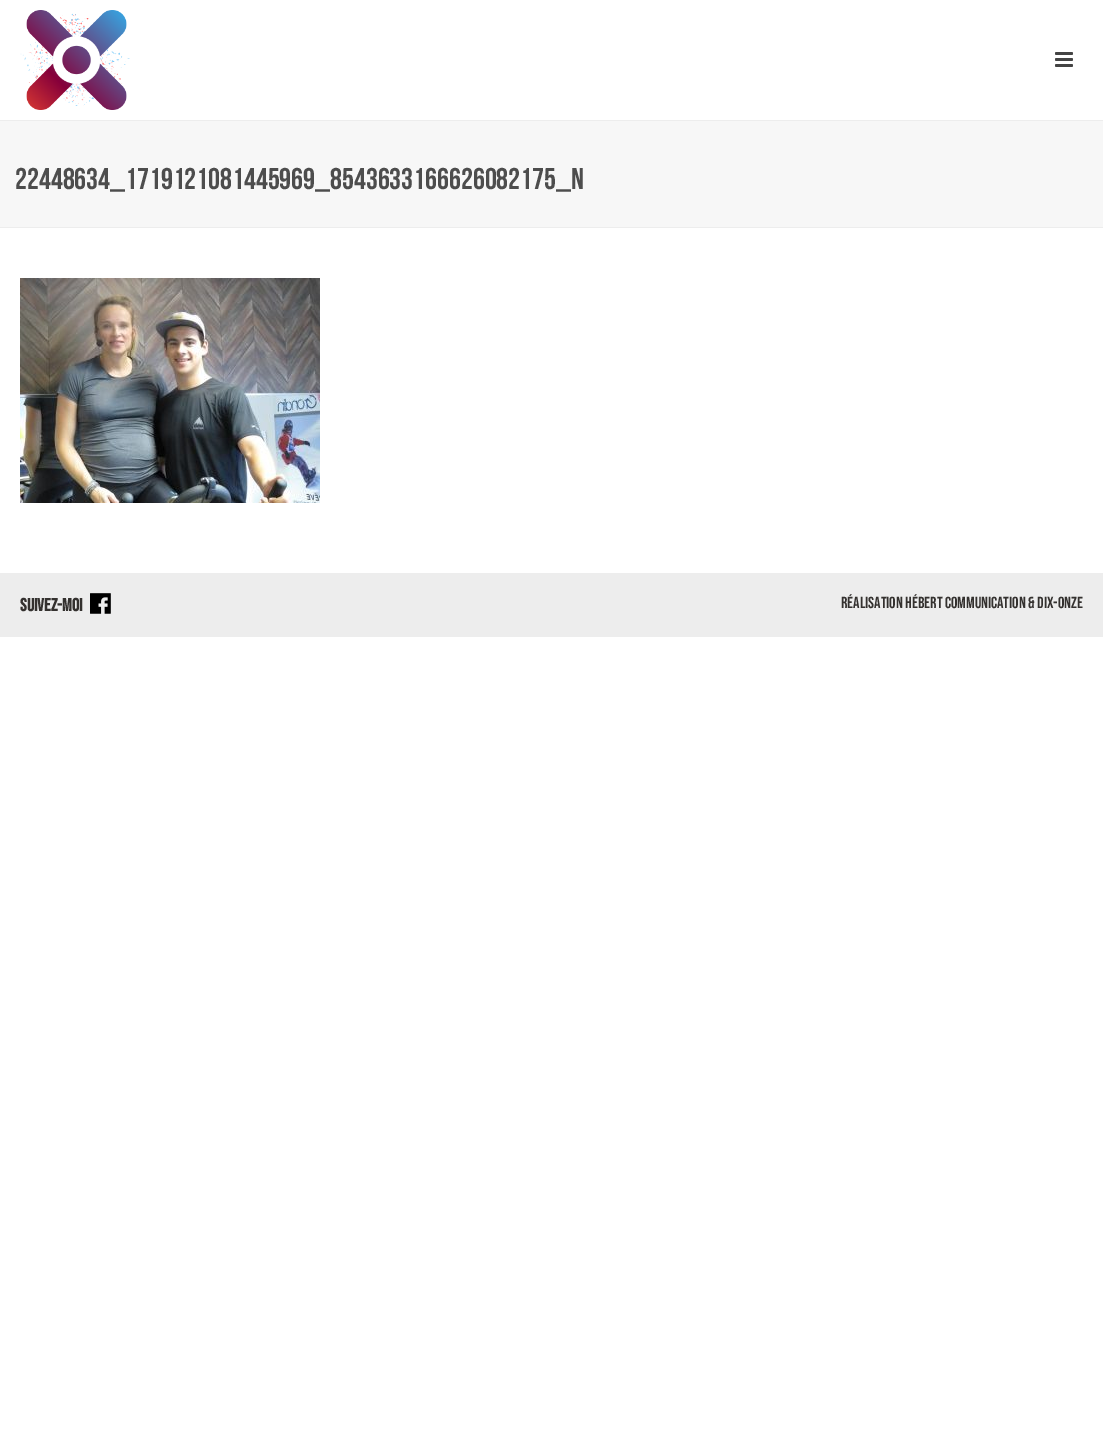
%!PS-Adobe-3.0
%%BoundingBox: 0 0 1103 1430
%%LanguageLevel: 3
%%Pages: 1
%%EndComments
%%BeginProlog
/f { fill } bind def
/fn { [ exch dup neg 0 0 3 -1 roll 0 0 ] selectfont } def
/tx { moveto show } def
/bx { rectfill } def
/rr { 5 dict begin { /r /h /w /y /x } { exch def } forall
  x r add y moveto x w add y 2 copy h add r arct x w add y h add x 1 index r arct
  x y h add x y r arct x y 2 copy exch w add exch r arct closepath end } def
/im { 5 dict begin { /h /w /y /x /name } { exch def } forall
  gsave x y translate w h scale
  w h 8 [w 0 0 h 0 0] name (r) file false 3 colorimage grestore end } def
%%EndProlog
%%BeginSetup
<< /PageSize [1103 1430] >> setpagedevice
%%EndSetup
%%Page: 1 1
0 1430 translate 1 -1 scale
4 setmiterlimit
1 setgray
0 0 1103 1430 bx
0.969 setgray
0 121 1103 106 bx
0.929 setgray
0 227 1103 1 bx
0 120 1103 1 bx
(image0.raw) 20 10 110 100 im
0.267 setgray
1055 52 18 3 1.5 rr f
1055 58 18 3 1.5 rr f
1055 64 18 3 1.5 rr f
/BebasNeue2-Bold 30 fn
0.302 setgray
(22448634_1719121081445969_8543633166626082175_N) 15 189 tx
(image1.raw) 20 278 300 225 im
0.929 setgray
0 573 1103 64 bx
/BebasNeue-Bold 18 fn
0.204 0.192 0.184 setrgbcolor
(SUIVEZ-MOI) 20 611 tx
(image2.raw) 90 593 21 21 im
/BebasNeue-Regular 16 fn
(Réalisation Hébert Communication & Dix-Onze) 841 608 tx
showpage
%%EOF
